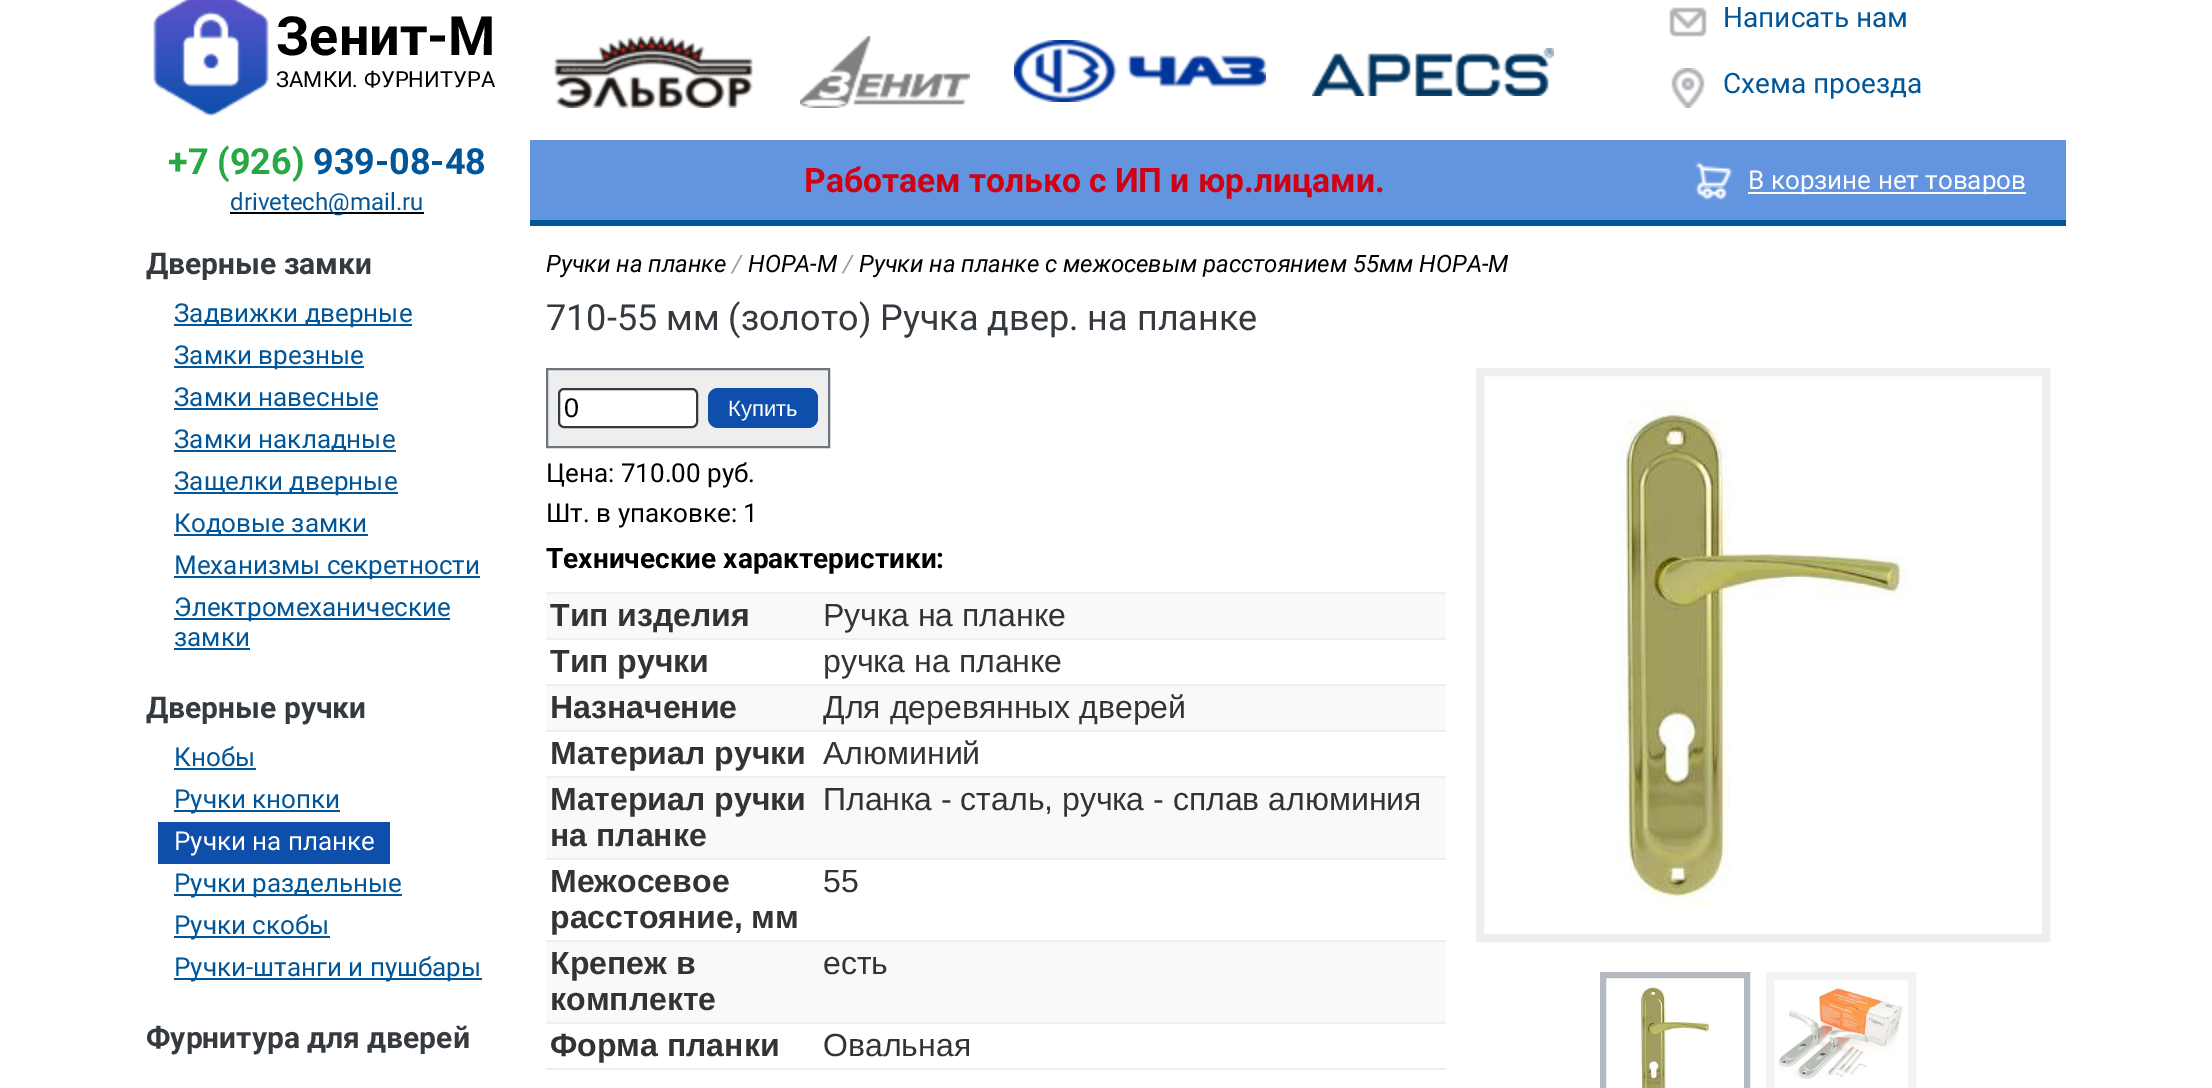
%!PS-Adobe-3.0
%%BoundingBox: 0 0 2212 1088
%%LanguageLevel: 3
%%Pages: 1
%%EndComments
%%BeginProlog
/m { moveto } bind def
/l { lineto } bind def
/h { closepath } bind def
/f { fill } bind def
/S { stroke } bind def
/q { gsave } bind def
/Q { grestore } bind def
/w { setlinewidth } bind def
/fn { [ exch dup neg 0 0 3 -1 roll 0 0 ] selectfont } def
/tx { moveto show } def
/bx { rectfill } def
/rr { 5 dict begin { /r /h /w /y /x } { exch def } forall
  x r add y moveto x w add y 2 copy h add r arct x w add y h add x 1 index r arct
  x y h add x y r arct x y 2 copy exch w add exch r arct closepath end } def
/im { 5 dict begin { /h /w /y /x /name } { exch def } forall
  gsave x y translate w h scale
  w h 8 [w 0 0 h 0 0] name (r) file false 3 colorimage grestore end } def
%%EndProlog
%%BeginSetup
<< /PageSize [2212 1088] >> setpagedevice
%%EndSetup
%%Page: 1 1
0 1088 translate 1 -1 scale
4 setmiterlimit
1 setgray
0 0 2212 1088 bx
(image0.raw) 153 0 116 116 im
/Roboto-Bold 54 fn
0 setgray
(Зенит-М) 276 55 tx
/Roboto-Regular 22 fn
(ЗАМКИ. ФУРНИТУРА) 276 87 tx
/Roboto-Bold 36 fn
0.157 0.655 0.271 setrgbcolor
(+7 \(926\)) 168 174 tx
0 0.337 0.596 setrgbcolor
(939-08-48) 313 174 tx
0 setgray
230 212 194 2 bx
/Roboto-Regular 24 fn
0 0.337 0.596 setrgbcolor
(drivetech@mail.ru) 230 210 tx
(image1.raw) 554 36 199 72 im
(image2.raw) 800 36 170 72 im
(image3.raw) 1014 40 252 62 im
(image4.raw) 1312 48 242 48 im
(image5.raw) 1669 7 39 30 im
/Roboto-Regular 28 fn
(Написать нам) 1723 27 tx
(image6.raw) 1671 68 34 40 im
(Схема проезда) 1723 93 tx
0.384 0.58 0.878 setrgbcolor
530 140 1536 80 bx
/Roboto-Bold 33.6 fn
0.82 0 0.075 setrgbcolor
(Работаем только с ИП и юр.лицами.) 804 192 tx
(image7.raw) 1695 161 38 40 im
1 setgray
1748 192 278 2 bx
/Roboto-Regular 26 fn
(В корзине нет товаров) 1748 189 tx
/Roboto-Bold 30 fn
0.204 0.227 0.251 setrgbcolor
(Дверные замки) 146 274 tx
0 0.337 0.596 setrgbcolor
174 324 238 2 bx
/Roboto-Regular 26 fn
(Задвижки дверные) 174 322 tx
174 366 190 2 bx
(Замки врезные) 174 364 tx
(Замки навесные) 174 406 tx
174 408 204 2 bx
174 450 222 2 bx
(Замки накладные) 174 448 tx
174 492 224 2 bx
(Защелки дверные) 174 490 tx
174 534 194 2 bx
(Кодовые замки) 174 532 tx
174 576 306 2 bx
(Механизмы секретности) 174 574 tx
174 618 276 2 bx
(Электромеханические) 174 616 tx
(замки) 174 646 tx
174 648 76 2 bx
/Roboto-Bold 30 fn
0.204 0.227 0.251 setrgbcolor
(Дверные ручки) 146 718 tx
/Roboto-Regular 26 fn
0 0.337 0.596 setrgbcolor
(Кнобы) 174 766 tx
174 768 82 2 bx
174 810 166 2 bx
(Ручки кнопки) 174 808 tx
0.051 0.31 0.671 setrgbcolor
158 822 232 42 bx
1 setgray
(Ручки на планке) 174 850 tx
0 0.337 0.596 setrgbcolor
174 894 228 2 bx
(Ручки раздельные) 174 892 tx
174 936 156 2 bx
(Ручки скобы) 174 934 tx
174 978 308 2 bx
(Ручки-штанги и пушбары) 174 976 tx
/Roboto-Bold 30 fn
0.204 0.227 0.251 setrgbcolor
(Фурнитура для дверей) 146 1048 tx
0 0.337 0.596 setrgbcolor
530 220 1536 6 bx
/Roboto-Italic 24 fn
0 setgray
(Ручки на планке) 546 272 tx
0.608 setgray
(/) 732 272 tx
0 setgray
(НОРА-М) 748 272 tx
0.608 setgray
(/) 843 272 tx
0 setgray
(Ручки на планке с межосевым расстоянием 55мм НОРА-М) 859 272 tx
/Roboto-Regular 36 fn
0.204 0.227 0.251 setrgbcolor
(710-55 мм \(золото\) Ручка двер. на планке) 546 330 tx
0.933 setgray
547 369 m 829 369 l 829 447 l 547 447 l h q f Q
0.424 0.459 0.49 setrgbcolor
2 w
S
1 setgray
559 389 138 38 5 rr q f Q
0.204 0.227 0.251 setrgbcolor
S
/LiberationSans-Regular 27 fn
0 setgray
(0) 564 417 tx
0.051 0.31 0.671 setrgbcolor
708 388 110 40 10 rr f
/LiberationSans-Regular 22 fn
1 setgray
(Купить) 728 416 tx
/Roboto-Regular 26 fn
0 setgray
(Цена: 710.00 руб.) 546 482 tx
(Шт. в упаковке: 1) 546 522 tx
/Roboto-Bold 28 fn
(Технические характеристики:) 546 568 tx
0.976 setgray
546 594 900 44 bx
0.933 setgray
546 592 900 2 bx
/LiberationSans-Bold 32 fn
0.2 setgray
(Тип изделия) 550 626 tx
/LiberationSans-Regular 32 fn
(Ручка на планке) 823 626 tx
0.933 setgray
546 638 900 2 bx
/LiberationSans-Bold 32 fn
0.2 setgray
(Тип ручки) 550 672 tx
/LiberationSans-Regular 32 fn
(ручка на планке) 823 672 tx
0.976 setgray
546 686 900 44 bx
0.933 setgray
546 684 900 2 bx
/LiberationSans-Bold 32 fn
0.2 setgray
(Назначение) 550 718 tx
/LiberationSans-Regular 32 fn
(Для деревянных дверей) 823 718 tx
0.933 setgray
546 730 900 2 bx
/LiberationSans-Bold 32 fn
0.2 setgray
(Материал ручки) 550 764 tx
/LiberationSans-Regular 32 fn
(Алюминий) 823 764 tx
0.976 setgray
546 778 900 80 bx
0.933 setgray
546 776 900 2 bx
/LiberationSans-Bold 32 fn
0.2 setgray
(Материал ручки) 550 810 tx
(на планке) 550 846 tx
/LiberationSans-Regular 32 fn
(Планка - сталь, ручка - сплав алюминия) 823 810 tx
0.933 setgray
546 858 900 2 bx
/LiberationSans-Bold 32 fn
0.2 setgray
(Межосевое) 550 892 tx
(расстояние, мм) 550 928 tx
/LiberationSans-Regular 32 fn
(55) 823 892 tx
0.976 setgray
546 942 900 80 bx
0.933 setgray
546 940 900 2 bx
/LiberationSans-Bold 32 fn
0.2 setgray
(Крепеж в) 550 974 tx
(комплекте) 550 1010 tx
/LiberationSans-Regular 32 fn
(есть) 823 974 tx
0.933 setgray
546 1022 900 2 bx
/LiberationSans-Bold 32 fn
0.2 setgray
(Форма планки) 550 1056 tx
/LiberationSans-Regular 32 fn
(Овальная) 823 1056 tx
0.933 setgray
546 1068 900 2 bx
8 w
1480 372 566 566 rectstroke
(image8.raw) 1618 398 290 510 im
0.706 0.725 0.753 setrgbcolor
6 w
1603 975 144 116 rectstroke
(image9.raw) 1639 984 72 104 im
0.953 setgray
8 w
1770 976 142 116 rectstroke
(image10.raw) 1777 985 126 94 im
showpage
%%EOF
